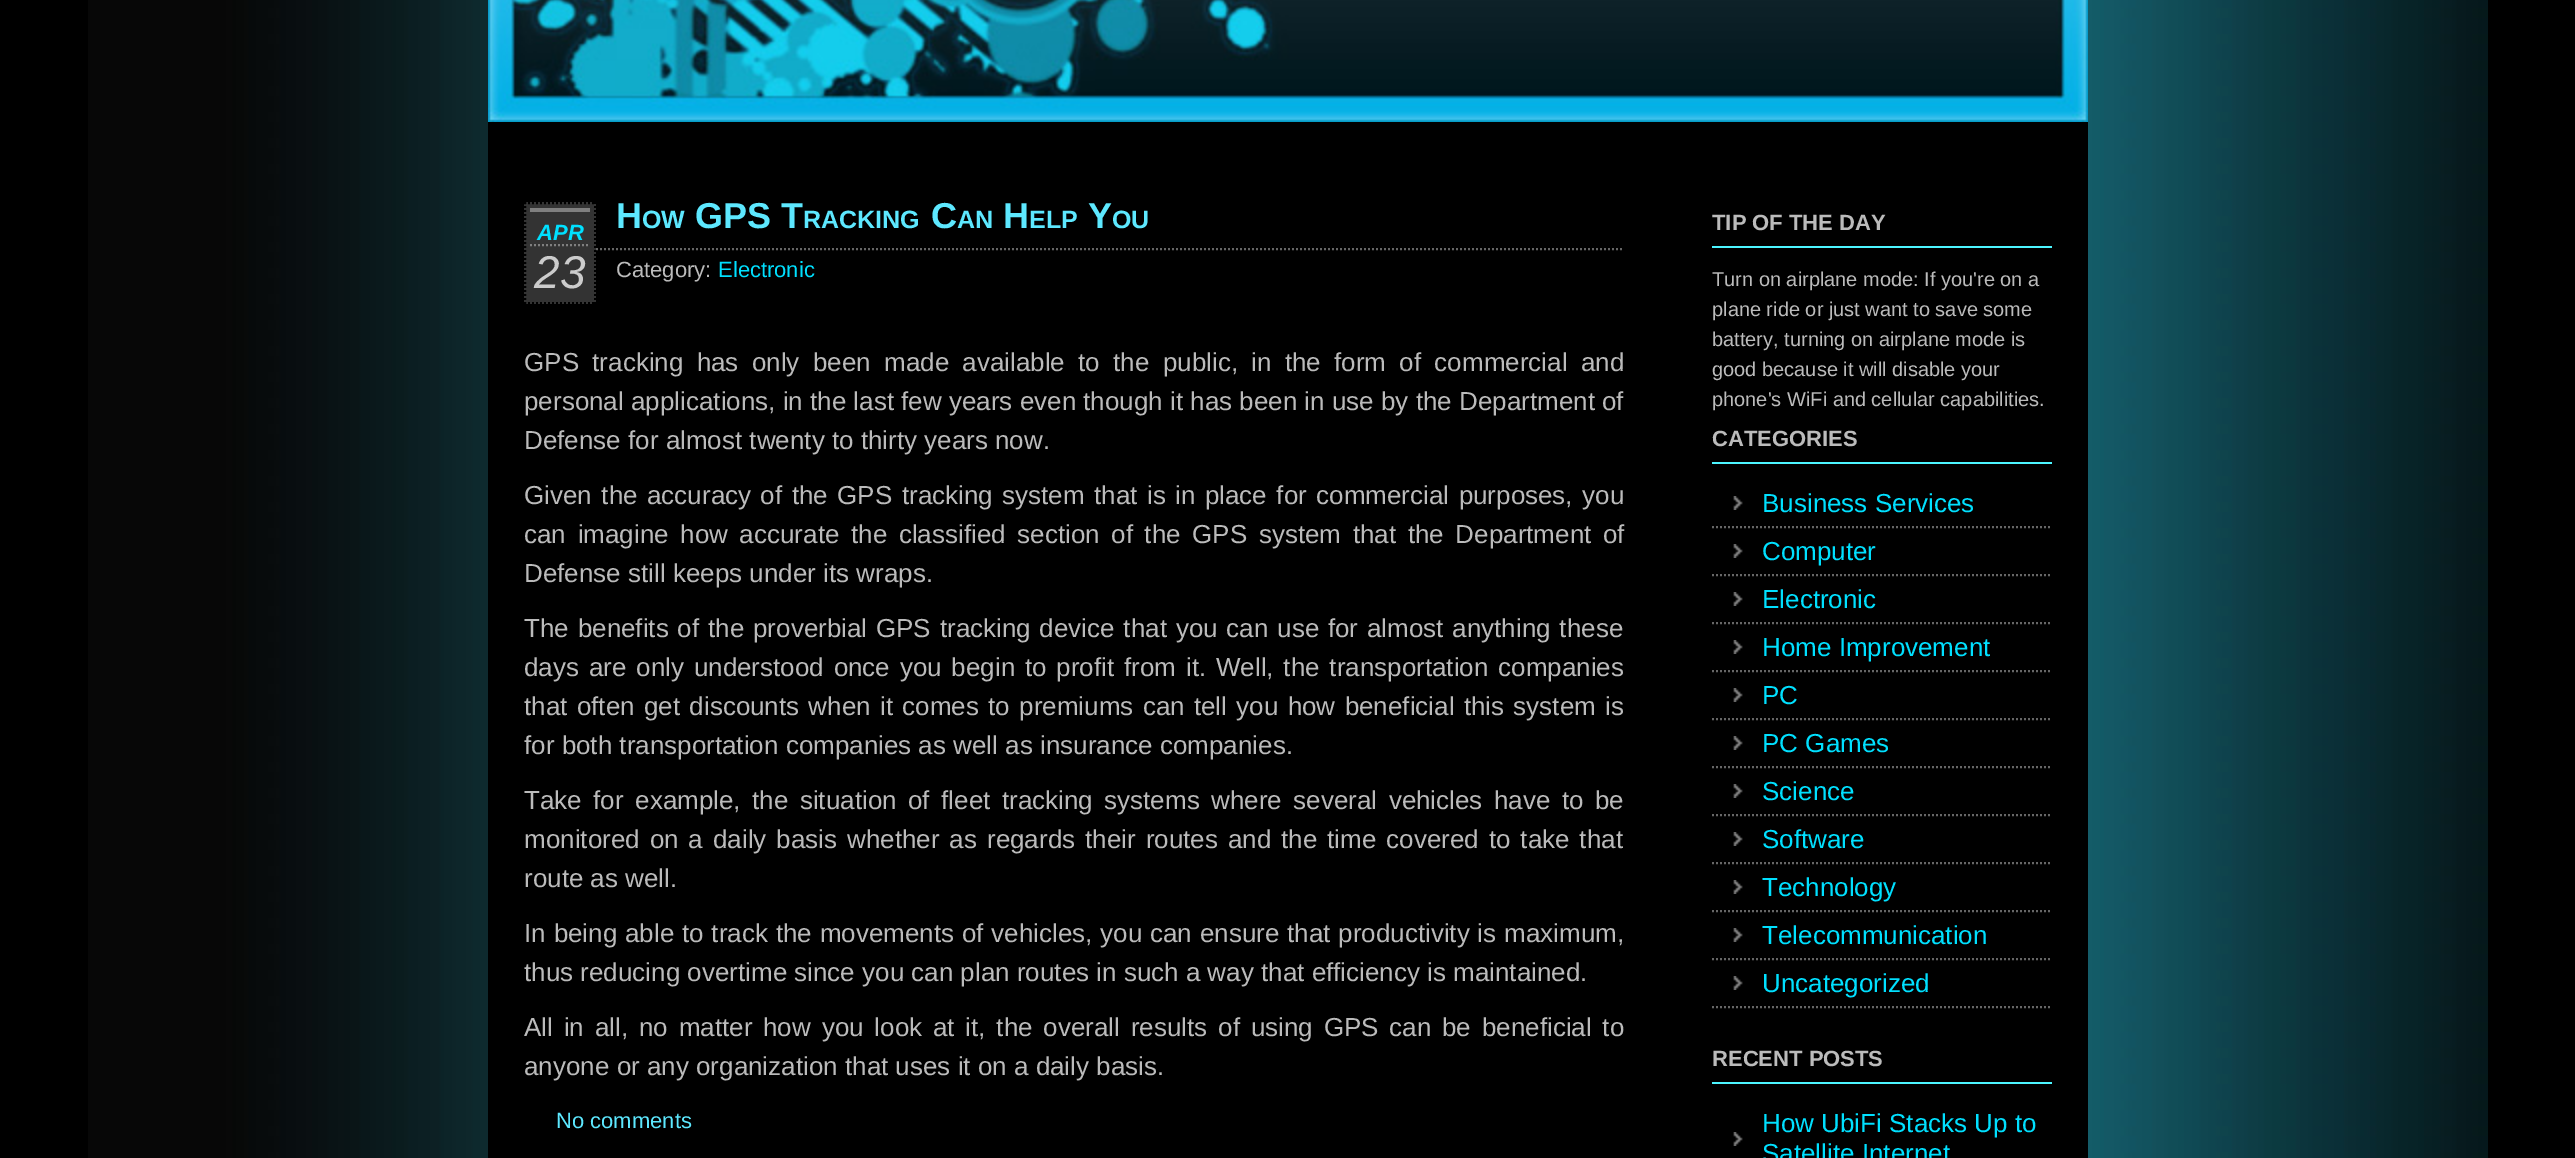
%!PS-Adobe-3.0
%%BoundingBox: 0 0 2575 1158
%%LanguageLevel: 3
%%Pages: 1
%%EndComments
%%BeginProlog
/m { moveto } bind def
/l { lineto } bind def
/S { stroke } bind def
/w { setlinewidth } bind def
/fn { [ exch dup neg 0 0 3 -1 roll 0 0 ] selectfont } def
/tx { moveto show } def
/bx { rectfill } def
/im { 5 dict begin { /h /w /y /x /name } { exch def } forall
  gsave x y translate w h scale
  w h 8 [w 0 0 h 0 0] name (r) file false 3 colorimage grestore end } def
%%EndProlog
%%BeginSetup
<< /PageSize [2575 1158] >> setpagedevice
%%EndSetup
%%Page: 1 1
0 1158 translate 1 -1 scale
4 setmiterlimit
0 setgray
0 0 2575 1158 bx
(image0.raw) 88 0 2400 1158 im
488 122 1600 1036 bx
(image1.raw) 488 0 1600 122 im
/LiberationSans-Bold 36 fn
0.365 0.91 1 setrgbcolor
(H) 616 228 tx
/LiberationSans-Bold 25 fn
(OW) 642 228 tx
/LiberationSans-Bold 36 fn
(GPS T) 695 228 tx
/LiberationSans-Bold 25 fn
(RACKING) 803 228 tx
/LiberationSans-Bold 36 fn
(C) 931 228 tx
/LiberationSans-Bold 25 fn
(AN) 957 228 tx
/LiberationSans-Bold 36 fn
(H) 1003 228 tx
/LiberationSans-Bold 25 fn
(ELP) 1029 228 tx
/LiberationSans-Bold 36 fn
(Y) 1088 228 tx
/LiberationSans-Bold 25 fn
(OU) 1112 228 tx
0.4 setgray
2 w
[2 2] 0 setdash
524 249 m 1624 249 l S
0.2 setgray
524 202 72 102 bx
0 setgray
524 203 m 596 203 l S
595 202 m 595 304 l S
524 303 m 596 303 l S
525 202 m 525 304 l S
0.498 setgray
530 208 60 4 bx
530 245 m 590 245 l S
/LiberationSans-BoldItalic 22 fn
0 0.878 1 setrgbcolor
(APR) 537 240 tx
/LiberationSans-Italic 46 fn
0.8 setgray
(23) 534 288 tx
/LiberationSans-Regular 22 fn
0.733 setgray
(Category:) 616 277 tx
0 0.878 1 setrgbcolor
(Electronic) 718 277 tx
/LiberationSans-Regular 26 fn
0.733 setgray
524 371 m 6.1 0 32 (GPS tracking has only been made available to the public, in the form of commercial and) widthshow
(personal applications, in the last few years even though it has been in use by the Department of) 524 410 tx
(Defense for almost twenty to thirty years now.) 524 449 tx
524 504 m 2.25 0 32 (Given the accuracy of the GPS tracking system that is in place for commercial purposes, you) widthshow
524 543 m 4.4 0 32 (can imagine how accurate the classified section of the GPS system that the Department of) widthshow
(Defense still keeps under its wraps.) 524 582 tx
524 637 m 1.6 0 32 (The benefits of the proverbial GPS tracking device that you can use for almost anything these) widthshow
524 676 m 2.6 0 32 (days are only understood once you begin to profit from it. Well, the transportation companies) widthshow
524 715 m 2.1 0 32 (that often get discounts when it comes to premiums can tell you how beneficial this system is) widthshow
(for both transportation companies as well as insurance companies.) 524 754 tx
524 809 m 4.25 0 32 (Take for example, the situation of fleet tracking systems where several vehicles have to be) widthshow
524 848 m 2.75 0 32 (monitored on a daily basis whether as regards their routes and the time covered to take that) widthshow
(route as well.) 524 887 tx
524 942 m 0.6 0 32 (In being able to track the movements of vehicles, you can ensure that productivity is maximum,) widthshow
(thus reducing overtime since you can plan routes in such a way that efficiency is maintained.) 524 981 tx
524 1036 m 3.6 0 32 (All in all, no matter how you look at it, the overall results of using GPS can be beneficial to) widthshow
(anyone or any organization that uses it on a daily basis.) 524 1075 tx
/LiberationSans-Regular 22 fn
0.365 0.91 1 setrgbcolor
(No comments) 556 1128 tx
0.298 0.961 1 setrgbcolor
1712 246 340 2 bx
/LiberationSans-Bold 22 fn
0.733 setgray
(TIP OF THE DAY) 1712 230 tx
/LiberationSans-Regular 20 fn
(Turn on airplane mode: If you're on a) 1712 286 tx
(plane ride or just want to save some) 1712 316 tx
(battery, turning on airplane mode is) 1712 346 tx
(good because it will disable your) 1712 376 tx
(phone's WiFi and cellular capabilities.) 1712 406 tx
0.298 0.961 1 setrgbcolor
1712 462 340 2 bx
/LiberationSans-Bold 22 fn
0.733 setgray
(CATEGORIES) 1712 446 tx
(image2.raw) 1733 496 10 14 im
0.4 setgray
1712 527 m 2052 527 l S
/LiberationSans-Regular 26 fn
0 0.878 1 setrgbcolor
(Business Services) 1762 512 tx
(image2.raw) 1733 544 10 14 im
0.4 setgray
1712 575 m 2052 575 l S
0 0.878 1 setrgbcolor
(Computer) 1762 560 tx
(image2.raw) 1733 592 10 14 im
0.4 setgray
1712 623 m 2052 623 l S
0 0.878 1 setrgbcolor
(Electronic) 1762 608 tx
(image2.raw) 1733 640 10 14 im
0.4 setgray
1712 671 m 2052 671 l S
0 0.878 1 setrgbcolor
(Home Improvement) 1762 656 tx
(image2.raw) 1733 688 10 14 im
0.4 setgray
1712 719 m 2052 719 l S
0 0.878 1 setrgbcolor
(PC) 1762 704 tx
(image2.raw) 1733 736 10 14 im
0.4 setgray
1712 767 m 2052 767 l S
0 0.878 1 setrgbcolor
(PC Games) 1762 752 tx
(image2.raw) 1733 784 10 14 im
0.4 setgray
1712 815 m 2052 815 l S
0 0.878 1 setrgbcolor
(Science) 1762 800 tx
(image2.raw) 1733 832 10 14 im
0.4 setgray
1712 863 m 2052 863 l S
0 0.878 1 setrgbcolor
(Software) 1762 848 tx
(image2.raw) 1733 880 10 14 im
0.4 setgray
1712 911 m 2052 911 l S
0 0.878 1 setrgbcolor
(Technology) 1762 896 tx
(image2.raw) 1733 928 10 14 im
0.4 setgray
1712 959 m 2052 959 l S
0 0.878 1 setrgbcolor
(Telecommunication) 1762 944 tx
(image2.raw) 1733 976 10 14 im
0.4 setgray
1712 1007 m 2052 1007 l S
0 0.878 1 setrgbcolor
(Uncategorized) 1762 992 tx
0.298 0.961 1 setrgbcolor
1712 1082 340 2 bx
/LiberationSans-Bold 22 fn
0.733 setgray
(RECENT POSTS) 1712 1066 tx
(image2.raw) 1733 1132 10 14 im
/LiberationSans-Regular 26 fn
0 0.878 1 setrgbcolor
(How UbiFi Stacks Up to) 1762 1132 tx
(Satellite Internet) 1762 1162 tx
showpage
%%EOF
